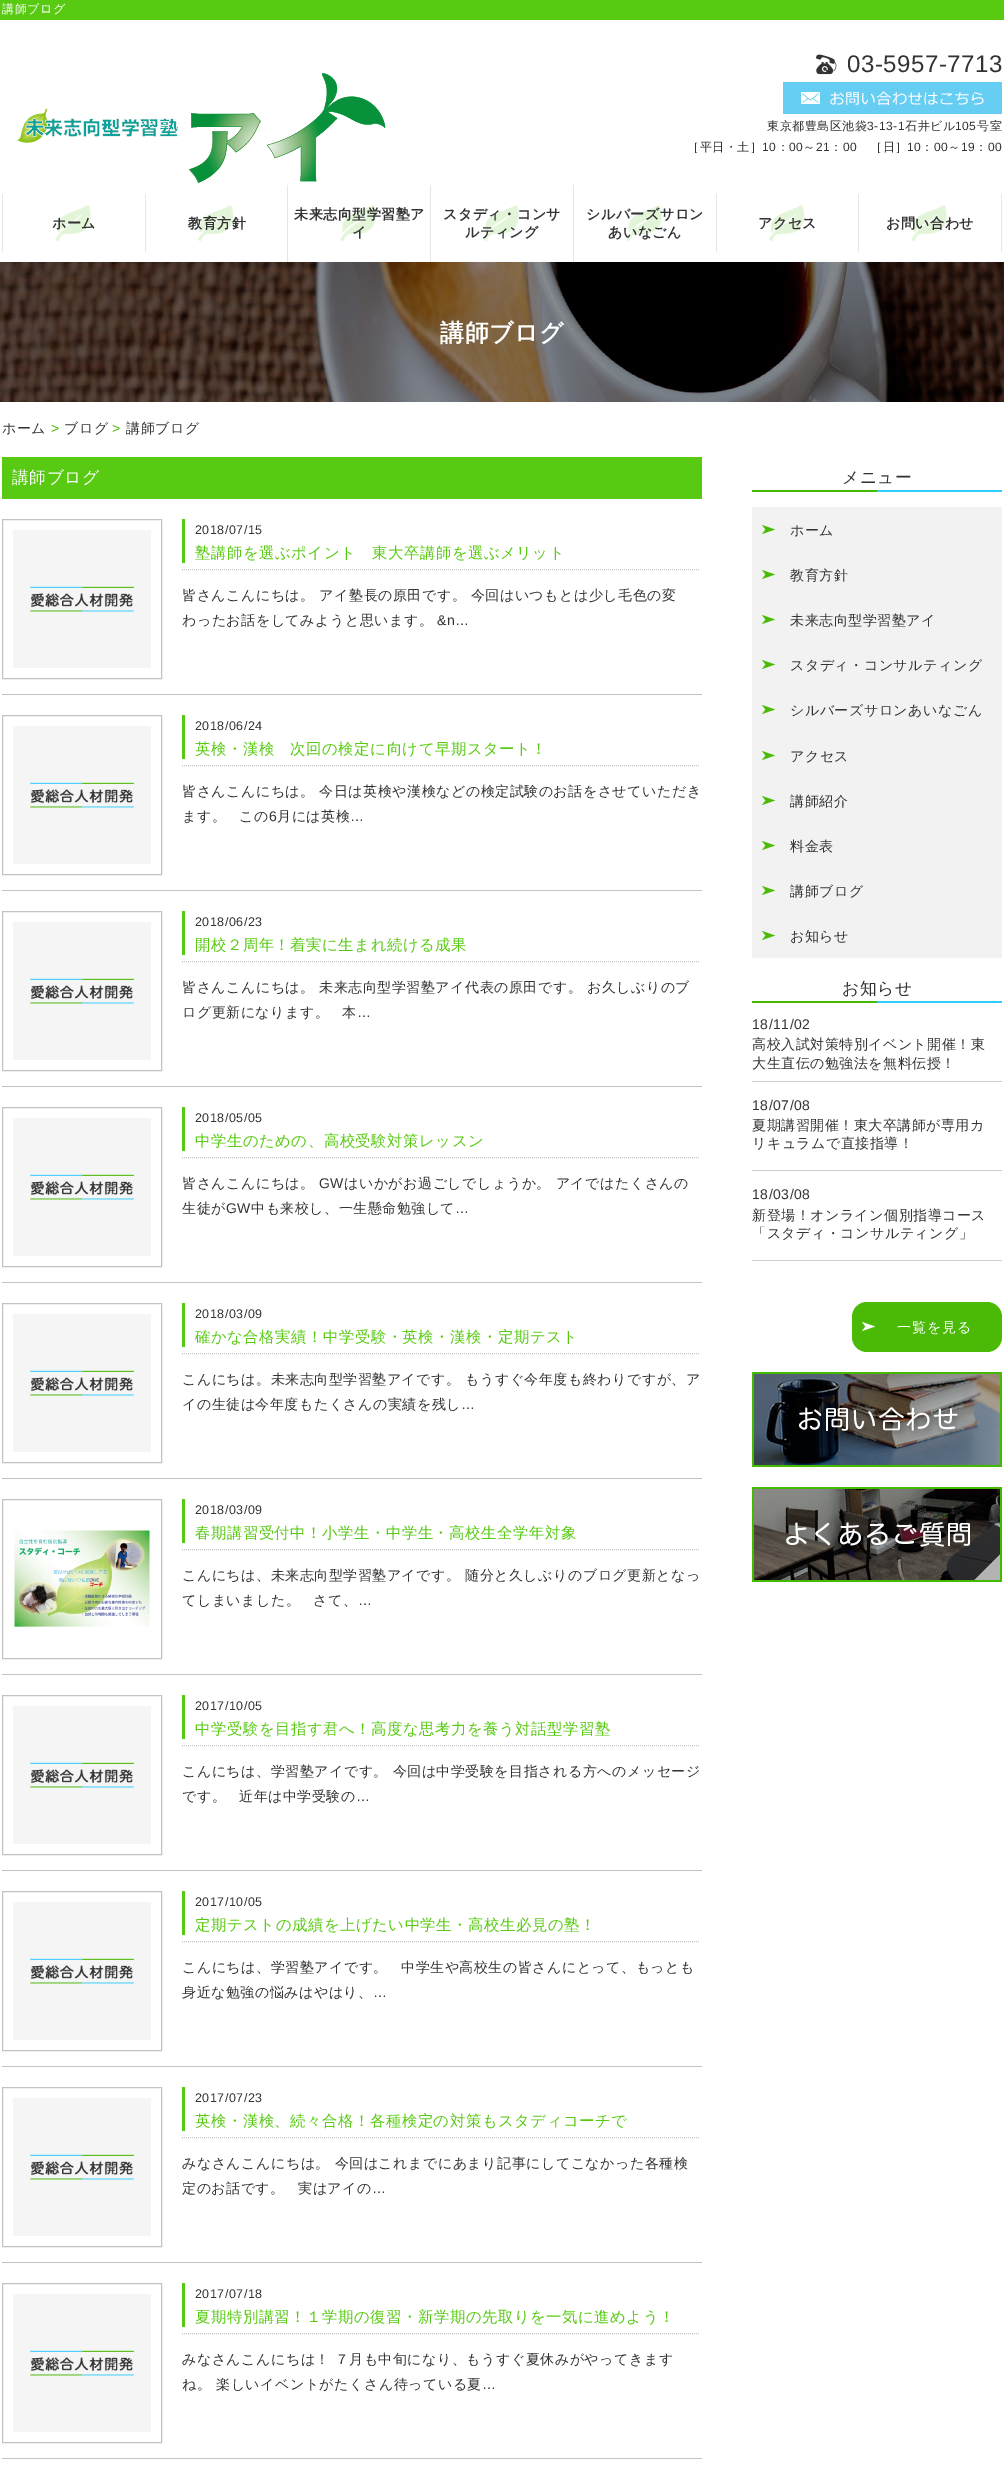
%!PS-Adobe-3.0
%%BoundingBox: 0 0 1004 2475
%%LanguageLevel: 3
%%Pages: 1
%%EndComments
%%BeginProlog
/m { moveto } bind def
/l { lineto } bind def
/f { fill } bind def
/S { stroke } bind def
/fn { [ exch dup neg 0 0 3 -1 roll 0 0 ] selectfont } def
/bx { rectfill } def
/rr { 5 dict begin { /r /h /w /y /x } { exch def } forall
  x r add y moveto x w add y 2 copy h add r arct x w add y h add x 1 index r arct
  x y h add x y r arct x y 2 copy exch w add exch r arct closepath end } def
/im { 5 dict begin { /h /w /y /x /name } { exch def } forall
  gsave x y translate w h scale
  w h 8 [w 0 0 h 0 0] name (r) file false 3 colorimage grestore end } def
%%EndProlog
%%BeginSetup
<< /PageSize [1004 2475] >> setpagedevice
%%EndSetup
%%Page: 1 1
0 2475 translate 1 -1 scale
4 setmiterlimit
1 setgray
0 0 1004 2475 bx
0.345 0.792 0.071 setrgbcolor
0 0 1004 20 bx
/WenQuanYiZenHei-Medium 12 fn
1 setgray
2 13 m 0.5 0 (講師ブログ) ashow
(image0.raw) 17 73 369 110 im
(image1.raw) 816 54 21 21 im
/LiberationSans-Regular 24 fn
0.2 setgray
847 72 m 0.5 0 (03-5957-7713) ashow
(image2.raw) 783 82 219 32 im
/WenQuanYiZenHei-Medium 12 fn
767 130 m 0.5 0 (東京都豊島区池袋) ashow
/LiberationSans-Regular 12 fn
867 130 m 0.5 0 (3-13-1) ashow
/WenQuanYiZenHei-Medium 12 fn
905 130 m 0.5 0 (石井ビル) ashow
/LiberationSans-Regular 12 fn
955 130 m 0.5 0 (105) ashow
/WenQuanYiZenHei-Medium 12 fn
977 130 m 0.5 0 (号室) ashow
687 151 m 0.5 0 (［平日・土］) ashow
/LiberationSans-Regular 12 fn
762 151 m 0.5 0 (10) ashow
/WenQuanYiZenHei-Medium 12 fn
777 151 m 0.5 0 (：) ashow
/LiberationSans-Regular 12 fn
789 151 m 0.5 0 (00) ashow
/WenQuanYiZenHei-Medium 12 fn
803 151 m 0.5 0 (～) ashow
/LiberationSans-Regular 12 fn
816 151 m 0.5 0 (21) ashow
/WenQuanYiZenHei-Medium 12 fn
830 151 m 0.5 0 (：) ashow
/LiberationSans-Regular 12 fn
843 151 m 0.5 0 (00) ashow
/WenQuanYiZenHei-Medium 12 fn
870 151 m 0.5 0 (［日］) ashow
/LiberationSans-Regular 12 fn
907 151 m 0.5 0 (10) ashow
/WenQuanYiZenHei-Medium 12 fn
921 151 m 0.5 0 (：) ashow
/LiberationSans-Regular 12 fn
934 151 m 0.5 0 (00) ashow
/WenQuanYiZenHei-Medium 12 fn
948 151 m 0.5 0 (～) ashow
/LiberationSans-Regular 12 fn
961 151 m 0.5 0 (19) ashow
/WenQuanYiZenHei-Medium 12 fn
975 151 m 0.5 0 (：) ashow
/LiberationSans-Regular 12 fn
988 151 m 0.5 0 (00) ashow
0.902 setgray
2 194 1 58 bx
(image3.raw) 55 205 36 36 im
/WenQuanYiZenHei-Bold 14 fn
0.2 setgray
52 228 m 0.5 0 (ホーム) ashow
0.902 setgray
145 194 1 58 bx
(image4.raw) 198 205 35 36 im
0.2 setgray
188 228 m 0.5 0 (教育方針) ashow
0.902 setgray
287 185 1 77 bx
(image5.raw) 340 205 36 36 im
0.2 setgray
294 219 m 0.5 0 (未来志向型学習塾ア) ashow
352 237 m 0.5 0 (イ) ashow
0.902 setgray
430 185 1 77 bx
(image5.raw) 483 205 36 36 im
0.2 setgray
443 219 m 0.5 0 (スタディ・コンサ) ashow
465 237 m 0.5 0 (ルティング) ashow
0.902 setgray
573 185 1 77 bx
(image5.raw) 626 205 36 36 im
0.2 setgray
586 219 m 0.5 0 (シルバーズサロン) ashow
608 237 m 0.5 0 (あいなごん) ashow
0.902 setgray
716 194 1 58 bx
(image4.raw) 769 205 35 36 im
0.2 setgray
758 228 m 0.5 0 (アクセス) ashow
0.902 setgray
1001 194 1 58 bx
858 194 1 58 bx
(image6.raw) 911 205 36 36 im
0.2 setgray
886 228 m 0.5 0 (お問い合わせ) ashow
(image7.raw) 0 262 1004 140 im
/WenQuanYiZenHei-Bold 24 fn
1 setgray
440 341 m 0.5 0 (講師ブログ) ashow
/WenQuanYiZenHei-Medium 14 fn
0.2 setgray
2 433 m 0.5 0 (ホーム) ashow
/LiberationSans-Regular 14 fn
0.275 0.722 0 setrgbcolor
51 433 m 0.5 0 (>) ashow
/WenQuanYiZenHei-Medium 14 fn
0.2 setgray
64 433 m 0.5 0 (ブログ) ashow
/LiberationSans-Regular 14 fn
0.275 0.722 0 setrgbcolor
112 433 m 0.5 0 (>) ashow
/WenQuanYiZenHei-Medium 14 fn
0.2 setgray
126 433 m 0.5 0 (講師ブログ) ashow
0.345 0.792 0.071 setrgbcolor
2 457 700 42 bx
/WenQuanYiZenHei-Medium 16.75 fn
1 setgray
12 483 m 0.5 0 (講師ブログ) ashow
0.765 setgray
2 694 700 1 bx
2.5 519.5 159 159 rectstroke
(image8.raw) 13 530 138 138 im
0.345 0.792 0.071 setrgbcolor
182 519 3 44 bx
/LiberationSans-Regular 12.5 fn
0.2 setgray
195 534 m 0.5 0 (2018/07/15) ashow
/WenQuanYiZenHei-Medium 15.4 fn
0.345 0.792 0.071 setrgbcolor
195 558 m 0.5 0 (塾講師を選ぶポイント　東大卒講師を選ぶメリット) ashow
0.765 setgray
[1 1] 0 setdash
182 569.5 m 699 569.5 l S
/WenQuanYiZenHei-Medium 14 fn
0.2 setgray
182 600 m 0.5 0 (皆さんこんにちは。 アイ塾長の原田です。 今回はいつもとは少し毛色の変) ashow
182 625 m 0.5 0 (わったお話をしてみようと思います。) ashow
/LiberationSans-Regular 14 fn
437 625 m 0.5 0 (&n…) ashow
0.765 setgray
2 890 700 1 bx
[] 0 setdash
2.5 715.5 159 159 rectstroke
(image8.raw) 13 726 138 138 im
0.345 0.792 0.071 setrgbcolor
182 715 3 44 bx
/LiberationSans-Regular 12.5 fn
0.2 setgray
195 730 m 0.5 0 (2018/06/24) ashow
/WenQuanYiZenHei-Medium 15.4 fn
0.345 0.792 0.071 setrgbcolor
195 754 m 0.5 0 (英検・漢検　次回の検定に向けて早期スタート！) ashow
0.765 setgray
[1 1] 0 setdash
182 765.5 m 699 765.5 l S
/WenQuanYiZenHei-Medium 14 fn
0.2 setgray
182 796 m 0.5 0 (皆さんこんにちは。 今日は英検や漢検などの検定試験のお話をさせていただき) ashow
182 821 m 0.5 0 (ます。) ashow
239 821 m 0.5 0 (この) ashow
/LiberationSans-Regular 14 fn
269 821 m 0.5 0 (6) ashow
/WenQuanYiZenHei-Medium 14 fn
277 821 m 0.5 0 (月には英検) ashow
/LiberationSans-Regular 14 fn
350 821 m 0.5 0 (…) ashow
0.765 setgray
2 1086 700 1 bx
[] 0 setdash
2.5 911.5 159 159 rectstroke
(image8.raw) 13 922 138 138 im
0.345 0.792 0.071 setrgbcolor
182 911 3 44 bx
/LiberationSans-Regular 12.5 fn
0.2 setgray
195 926 m 0.5 0 (2018/06/23) ashow
/WenQuanYiZenHei-Medium 15.4 fn
0.345 0.792 0.071 setrgbcolor
195 950 m 0.5 0 (開校２周年！着実に生まれ続ける成果) ashow
0.765 setgray
[1 1] 0 setdash
182 961.5 m 699 961.5 l S
/WenQuanYiZenHei-Medium 14 fn
0.2 setgray
182 992 m 0.5 0 (皆さんこんにちは。 未来志向型学習塾アイ代表の原田です。 お久しぶりのブ) ashow
182 1017 m 0.5 0 (ログ更新になります。) ashow
342 1017 m 0.5 0 (本) ashow
/LiberationSans-Regular 14 fn
357 1017 m 0.5 0 (…) ashow
0.765 setgray
2 1282 700 1 bx
[] 0 setdash
2.5 1107.5 159 159 rectstroke
(image8.raw) 13 1118 138 138 im
0.345 0.792 0.071 setrgbcolor
182 1107 3 44 bx
/LiberationSans-Regular 12.5 fn
0.2 setgray
195 1122 m 0.5 0 (2018/05/05) ashow
/WenQuanYiZenHei-Medium 15.4 fn
0.345 0.792 0.071 setrgbcolor
195 1146 m 0.5 0 (中学生のための、高校受験対策レッスン) ashow
0.765 setgray
[1 1] 0 setdash
182 1157.5 m 699 1157.5 l S
/WenQuanYiZenHei-Medium 14 fn
0.2 setgray
182 1188 m 0.5 0 (皆さんこんにちは。) ashow
/LiberationSans-Regular 14 fn
319 1188 m 0.5 0 (GW) ashow
/WenQuanYiZenHei-Medium 14 fn
344 1188 m 0.5 0 (はいかがお過ごしでしょうか。 アイではたくさんの) ashow
182 1213 m 0.5 0 (生徒が) ashow
/LiberationSans-Regular 14 fn
226 1213 m 0.5 0 (GW) ashow
/WenQuanYiZenHei-Medium 14 fn
251 1213 m 0.5 0 (中も来校し、一生懸命勉強して) ashow
/LiberationSans-Regular 14 fn
455 1213 m 0.5 0 (…) ashow
0.765 setgray
2 1478 700 1 bx
[] 0 setdash
2.5 1303.5 159 159 rectstroke
(image8.raw) 13 1314 138 138 im
0.345 0.792 0.071 setrgbcolor
182 1303 3 44 bx
/LiberationSans-Regular 12.5 fn
0.2 setgray
195 1318 m 0.5 0 (2018/03/09) ashow
/WenQuanYiZenHei-Medium 15.4 fn
0.345 0.792 0.071 setrgbcolor
195 1342 m 0.5 0 (確かな合格実績！中学受験・英検・漢検・定期テスト) ashow
0.765 setgray
[1 1] 0 setdash
182 1353.5 m 699 1353.5 l S
/WenQuanYiZenHei-Medium 14 fn
0.2 setgray
182 1384 m 0.5 0 (こんにちは。未来志向型学習塾アイです。 もうすぐ今年度も終わりですが、ア) ashow
182 1409 m 0.5 0 (イの生徒は今年度もたくさんの実績を残し) ashow
/LiberationSans-Regular 14 fn
461 1409 m 0.5 0 (…) ashow
0.765 setgray
2 1674 700 1 bx
[] 0 setdash
2.5 1499.5 159 159 rectstroke
(image9.raw) 14 1530 136 97 im
0.345 0.792 0.071 setrgbcolor
182 1499 3 44 bx
/LiberationSans-Regular 12.5 fn
0.2 setgray
195 1514 m 0.5 0 (2018/03/09) ashow
/WenQuanYiZenHei-Medium 15.4 fn
0.345 0.792 0.071 setrgbcolor
195 1538 m 0.5 0 (春期講習受付中！小学生・中学生・高校生全学年対象) ashow
0.765 setgray
[1 1] 0 setdash
182 1549.5 m 699 1549.5 l S
/WenQuanYiZenHei-Medium 14 fn
0.2 setgray
182 1580 m 0.5 0 (こんにちは、未来志向型学習塾アイです。 随分と久しぶりのブログ更新となっ) ashow
182 1605 m 0.5 0 (てしまいました。) ashow
313 1605 m 0.5 0 (さて、) ashow
/LiberationSans-Regular 14 fn
358 1605 m 0.5 0 (…) ashow
0.765 setgray
2 1870 700 1 bx
[] 0 setdash
2.5 1695.5 159 159 rectstroke
(image8.raw) 13 1706 138 138 im
0.345 0.792 0.071 setrgbcolor
182 1695 3 44 bx
/LiberationSans-Regular 12.5 fn
0.2 setgray
195 1710 m 0.5 0 (2017/10/05) ashow
/WenQuanYiZenHei-Medium 15.4 fn
0.345 0.792 0.071 setrgbcolor
195 1734 m 0.5 0 (中学受験を目指す君へ！高度な思考力を養う対話型学習塾) ashow
0.765 setgray
[1 1] 0 setdash
182 1745.5 m 699 1745.5 l S
/WenQuanYiZenHei-Medium 14 fn
0.2 setgray
182 1776 m 0.5 0 (こんにちは、学習塾アイです。 今回は中学受験を目指される方へのメッセージ) ashow
182 1801 m 0.5 0 (です。) ashow
239 1801 m 0.5 0 (近年は中学受験の) ashow
/LiberationSans-Regular 14 fn
356 1801 m 0.5 0 (…) ashow
0.765 setgray
2 2066 700 1 bx
[] 0 setdash
2.5 1891.5 159 159 rectstroke
(image8.raw) 13 1902 138 138 im
0.345 0.792 0.071 setrgbcolor
182 1891 3 44 bx
/LiberationSans-Regular 12.5 fn
0.2 setgray
195 1906 m 0.5 0 (2017/10/05) ashow
/WenQuanYiZenHei-Medium 15.4 fn
0.345 0.792 0.071 setrgbcolor
195 1930 m 0.5 0 (定期テストの成績を上げたい中学生・高校生必見の塾！) ashow
0.765 setgray
[1 1] 0 setdash
182 1941.5 m 699 1941.5 l S
/WenQuanYiZenHei-Medium 14 fn
0.2 setgray
182 1972 m 0.5 0 (こんにちは、学習塾アイです。) ashow
401 1972 m 0.5 0 (中学生や高校生の皆さんにとって、もっとも) ashow
182 1997 m 0.5 0 (身近な勉強の悩みはやはり、) ashow
/LiberationSans-Regular 14 fn
373 1997 m 0.5 0 (…) ashow
0.765 setgray
2 2262 700 1 bx
[] 0 setdash
2.5 2087.5 159 159 rectstroke
(image8.raw) 13 2098 138 138 im
0.345 0.792 0.071 setrgbcolor
182 2087 3 44 bx
/LiberationSans-Regular 12.5 fn
0.2 setgray
195 2102 m 0.5 0 (2017/07/23) ashow
/WenQuanYiZenHei-Medium 15.4 fn
0.345 0.792 0.071 setrgbcolor
195 2126 m 0.5 0 (英検・漢検、続々合格！各種検定の対策もスタディコーチで) ashow
0.765 setgray
[1 1] 0 setdash
182 2137.5 m 699 2137.5 l S
/WenQuanYiZenHei-Medium 14 fn
0.2 setgray
182 2168 m 0.5 0 (みなさんこんにちは。 今回はこれまでにあまり記事にしてこなかった各種検) ashow
182 2193 m 0.5 0 (定のお話です。) ashow
298 2193 m 0.5 0 (実はアイの) ashow
/LiberationSans-Regular 14 fn
372 2193 m 0.5 0 (…) ashow
0.765 setgray
2 2458 700 1 bx
[] 0 setdash
2.5 2283.5 159 159 rectstroke
(image8.raw) 13 2294 138 138 im
0.345 0.792 0.071 setrgbcolor
182 2283 3 44 bx
/LiberationSans-Regular 12.5 fn
0.2 setgray
195 2298 m 0.5 0 (2017/07/18) ashow
/WenQuanYiZenHei-Medium 15.4 fn
0.345 0.792 0.071 setrgbcolor
195 2322 m 0.5 0 (夏期特別講習！１学期の復習・新学期の先取りを一気に進めよう！) ashow
0.765 setgray
[1 1] 0 setdash
182 2333.5 m 699 2333.5 l S
/WenQuanYiZenHei-Medium 14 fn
0.2 setgray
182 2364 m 0.5 0 (みなさんこんにちは！ ７月も中旬になり、もうすぐ夏休みがやってきます) ashow
182 2389 m 0.5 0 (ね。 楽しいイベントがたくさん待っている夏) ashow
/LiberationSans-Regular 14 fn
482 2389 m 0.5 0 (…) ashow
(image10.raw) 752 490 250 2 im
/WenQuanYiZenHei-Medium 16.75 fn
842 483 m 0.5 0 (メニュー) ashow
0.949 setgray
752 507 250 451 bx
(image11.raw) 762 525 13 9 im
/WenQuanYiZenHei-Medium 14 fn
0.2 setgray
790 535 m 0.5 0 (ホーム) ashow
(image11.raw) 762 570 13 9 im
790 580 m 0.5 0 (教育方針) ashow
(image11.raw) 762 615 13 9 im
790 625 m 0.5 0 (未来志向型学習塾アイ) ashow
(image11.raw) 762 660 13 9 im
790 670 m 0.5 0 (スタディ・コンサルティング) ashow
(image11.raw) 762 705 13 9 im
790 715 m 0.5 0 (シルバーズサロンあいなごん) ashow
(image11.raw) 762 751 13 9 im
790 761 m 0.5 0 (アクセス) ashow
(image11.raw) 762 796 13 9 im
790 806 m 0.5 0 (講師紹介) ashow
(image11.raw) 762 841 13 9 im
790 851 m 0.5 0 (料金表) ashow
(image11.raw) 762 886 13 9 im
790 896 m 0.5 0 (講師ブログ) ashow
(image11.raw) 762 931 13 9 im
790 941 m 0.5 0 (お知らせ) ashow
(image10.raw) 752 1001 250 2 im
/WenQuanYiZenHei-Medium 16.75 fn
842 994 m 0.5 0 (お知らせ) ashow
0.8 setgray
752 1081 250 1 bx
/LiberationSans-Regular 14 fn
0.2 setgray
752 1029 m 0.5 0 (18/11/02) ashow
/WenQuanYiZenHei-Medium 14 fn
752 1049 m 0.5 0 (高校入試対策特別イベント開催！東) ashow
752 1068 m 0.5 0 (大生直伝の勉強法を無料伝授！) ashow
0.8 setgray
752 1170 250 1 bx
/LiberationSans-Regular 14 fn
0.2 setgray
752 1110 m 0.5 0 (18/07/08) ashow
/WenQuanYiZenHei-Medium 14 fn
752 1130 m 0.5 0 (夏期講習開催！東大卒講師が専用カ) ashow
752 1148 m 0.5 0 (リキュラムで直接指導！) ashow
0.8 setgray
752 1260 250 1 bx
/LiberationSans-Regular 14 fn
0.2 setgray
752 1199 m 0.5 0 (18/03/08) ashow
/WenQuanYiZenHei-Medium 14 fn
752 1220 m 0.5 0 (新登場！オンライン個別指導コース) ashow
752 1238 m 0.5 0 (「スタディ・コンサルティング」) ashow
0.29 0.729 0.024 setrgbcolor
852 1302 150 50 15 rr f
(image12.raw) 862 1322 13 9 im
1 setgray
897 1332 m 1 0 (一覧を見る) ashow
(image13.raw) 752 1372 250 95 im
(image14.raw) 752 1487 250 95 im
showpage
%%EOF
